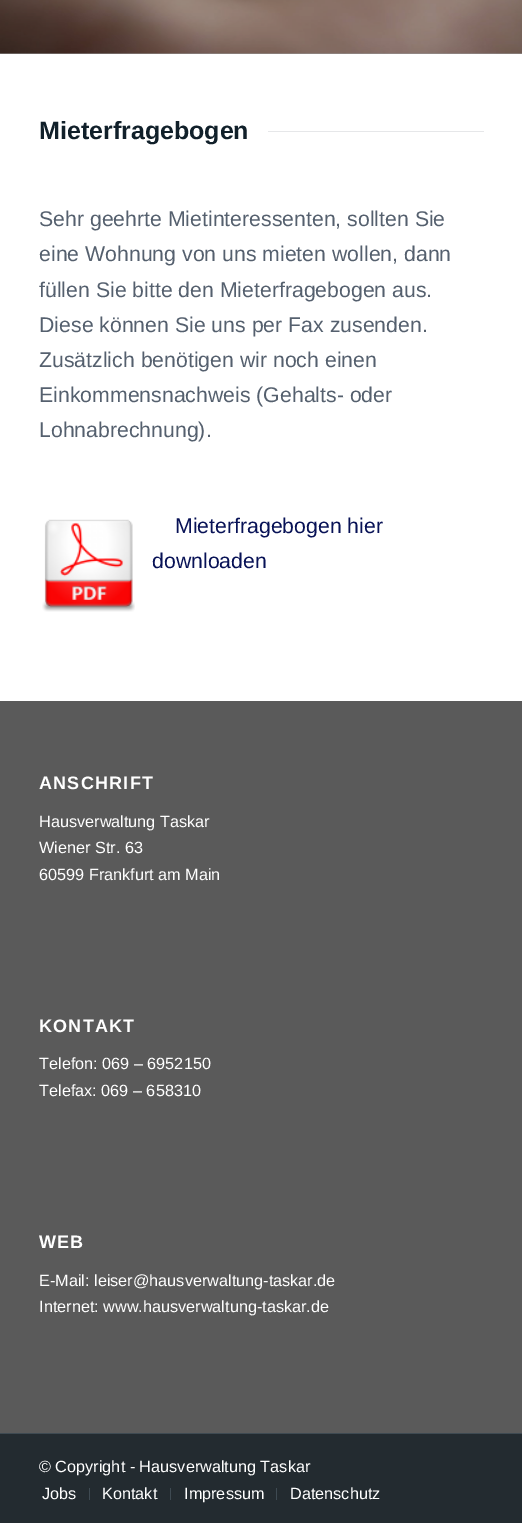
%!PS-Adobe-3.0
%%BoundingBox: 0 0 522 1523
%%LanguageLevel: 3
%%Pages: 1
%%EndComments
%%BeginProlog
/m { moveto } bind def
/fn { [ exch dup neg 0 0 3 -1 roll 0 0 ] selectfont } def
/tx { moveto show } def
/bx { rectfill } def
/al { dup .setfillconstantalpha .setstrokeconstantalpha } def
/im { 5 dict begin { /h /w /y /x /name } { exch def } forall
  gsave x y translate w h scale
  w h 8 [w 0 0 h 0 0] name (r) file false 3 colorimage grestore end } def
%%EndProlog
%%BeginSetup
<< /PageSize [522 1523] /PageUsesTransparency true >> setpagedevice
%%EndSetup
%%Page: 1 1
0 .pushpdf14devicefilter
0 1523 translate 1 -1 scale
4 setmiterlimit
1 setgray
0 0 522 1523 bx
(image0.raw) 0 0 522 54 im
0.4 al
0 setgray
0 0 522 54 bx
/LiberationSans-Bold 25 fn
1 al
0.067 0.125 0.165 setrgbcolor
(Mieterfragebogen) 39 139 tx
0.902 0.906 0.914 setrgbcolor
268 131 216 1 bx
/LiberationSans-Regular 21.25 fn
0.333 0.376 0.431 setrgbcolor
(Sehr geehrte Mietinteressenten, sollten Sie) 39 226 tx
(eine Wohnung von uns mieten wollen, dann) 39 261 tx
(füllen Sie bitte den Mieterfragebogen aus.) 39 297 tx
(Diese können Sie uns per Fax zusenden.) 39 332 tx
(Zusätzlich benötigen wir noch einen) 39 367 tx
(Einkommensnachweis \(Gehalts- oder) 39 402 tx
(Lohnabrechnung\).) 39 437 tx
(image1.raw) 42 519 93 93 im
0.031 0.071 0.337 setrgbcolor
(Mieterfragebogen hier) 175 533 tx
(downloaden) 152 568 tx
0.353 setgray
0 701 522 732 bx
/LiberationSans-Bold 18 fn
1 setgray
39 789 m 1.25 0 (ANSCHRIFT) ashow
/LiberationSans-Regular 16.25 fn
(Hausverwaltung Taskar) 39 827 tx
(Wiener Str. 63) 39 853 tx
(60599 Frankfurt am Main) 39 880 tx
/LiberationSans-Bold 18 fn
39 1032 m 1.25 0 (KONTAKT) ashow
/LiberationSans-Regular 16.25 fn
(Telefon: 069 – 6952150) 39 1069 tx
(Telefax: 069 – 658310) 39 1096 tx
/LiberationSans-Bold 18 fn
39 1248 m 1.25 0 (WEB) ashow
/LiberationSans-Regular 16.25 fn
(E-Mail: leiser@hausverwaltung-taskar.de) 39 1286 tx
(Internet: www.hausverwaltung-taskar.de) 39 1312 tx
0.137 0.169 0.188 setrgbcolor
0 1434 522 89 bx
0.243 0.29 0.322 setrgbcolor
0 1433 522 1 bx
1 setgray
(© Copyright - Hausverwaltung Taskar) 39 1472 tx
(Jobs) 42 1499 tx
0.243 0.29 0.322 setrgbcolor
89 1488 1 12 bx
1 setgray
(Kontakt) 102 1499 tx
0.243 0.29 0.322 setrgbcolor
170 1488 1 12 bx
1 setgray
(Impressum) 184 1499 tx
0.243 0.29 0.322 setrgbcolor
276 1488 1 12 bx
1 setgray
(Datenschutz) 290 1499 tx
.poppdf14devicefilter showpage
%%EOF
